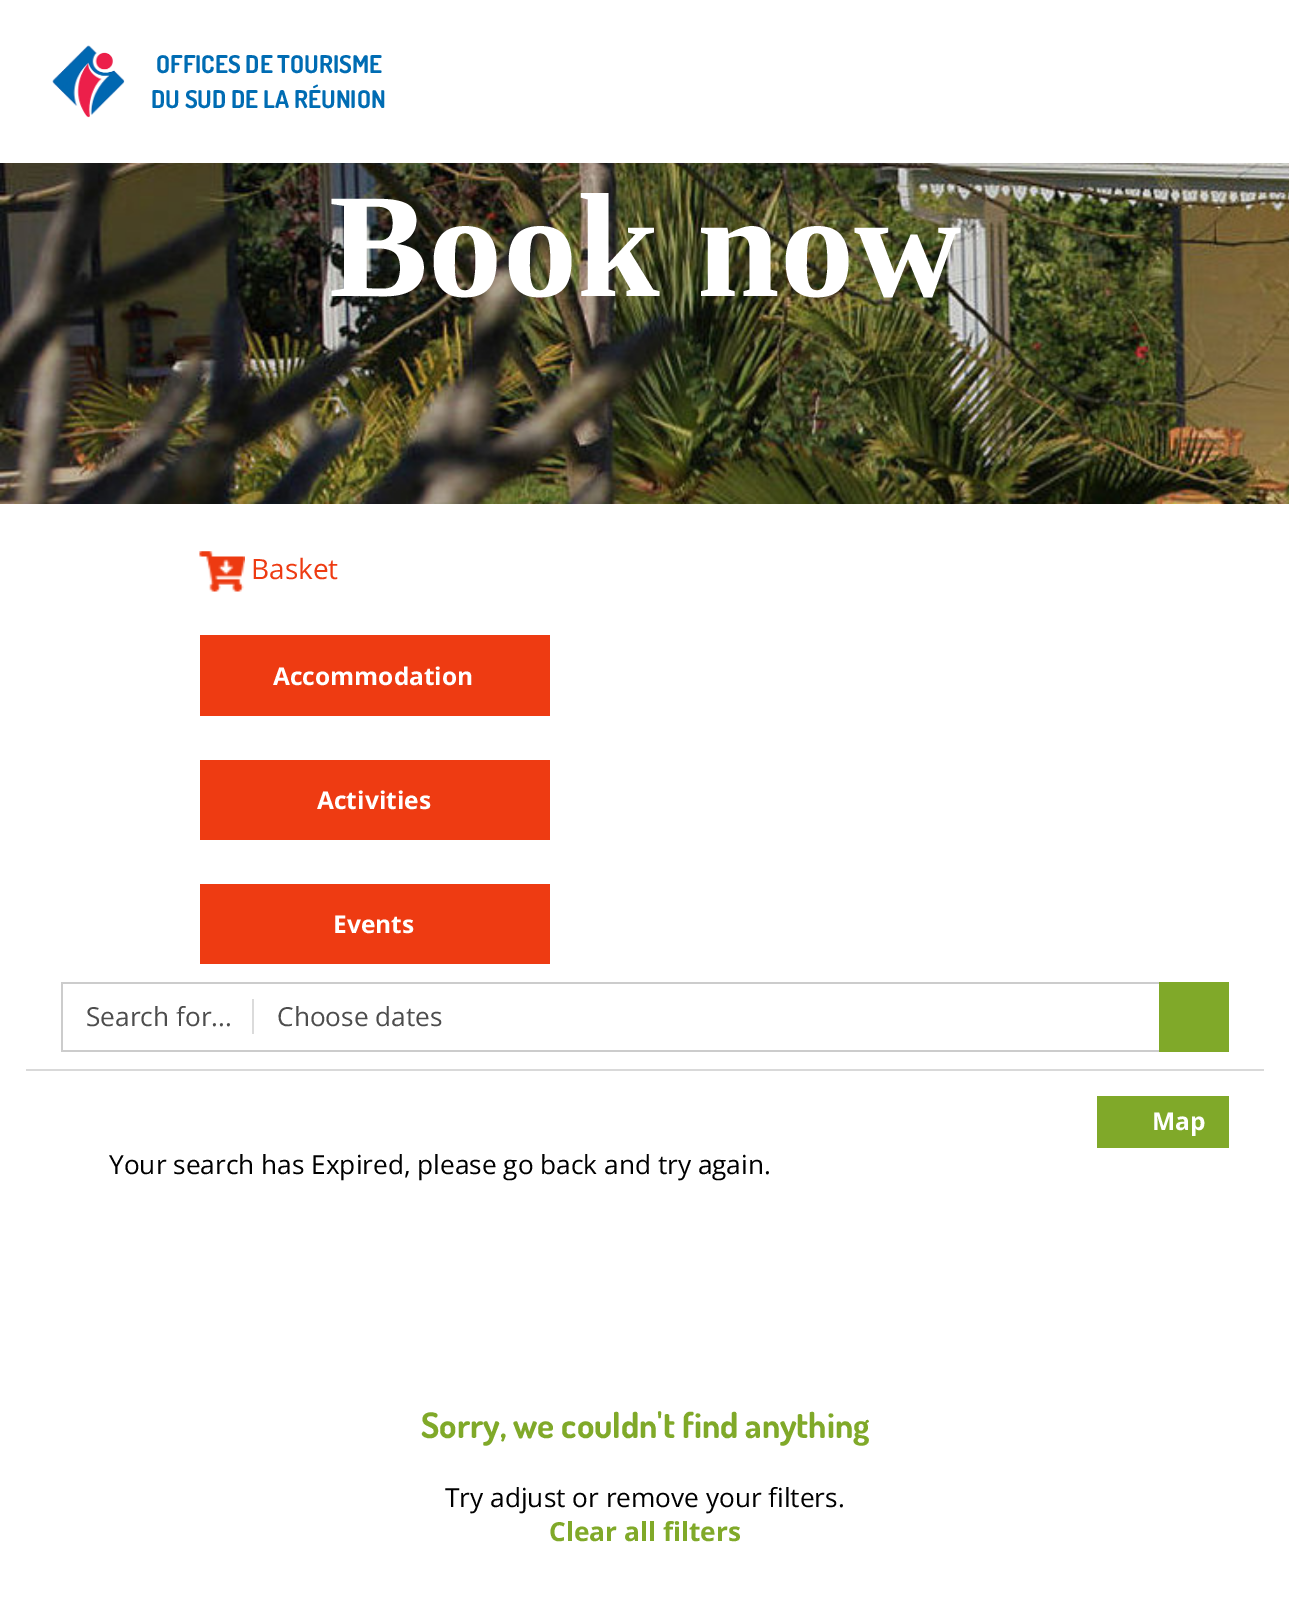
%!PS-Adobe-3.0
%%BoundingBox: 0 0 1289 1598
%%LanguageLevel: 3
%%Pages: 1
%%EndComments
%%BeginProlog
/m { moveto } bind def
/l { lineto } bind def
/h { closepath } bind def
/f { fill } bind def
/fn { [ exch dup neg 0 0 3 -1 roll 0 0 ] selectfont } def
/tx { moveto show } def
/bx { rectfill } def
/im { 5 dict begin { /h /w /y /x /name } { exch def } forall
  gsave x y translate w h scale
  w h 8 [w 0 0 h 0 0] name (r) file false 3 colorimage grestore end } def
%%EndProlog
%%BeginSetup
<< /PageSize [1289 1598] >> setpagedevice
%%EndSetup
%%Page: 1 1
0 1598 translate 1 -1 scale
4 setmiterlimit
1 setgray
0 0 1289 1598 bx
(image0.raw) 52 45 73 73 im
/Dosis-Bold 24.5 fn
0 0.424 0.702 setrgbcolor
(OFFICES DE TOURISME) 156 73 tx
(DU SUD DE LA RÉUNION) 151 108 tx
(image1.raw) 0 163 1289 341 im
/LiberationSerif-Bold 148.75 fn
1 setgray
(Book now) 329 296 tx
(image2.raw) 199 551 46 41 im
/OpenSans-Regular 28 fn
0.933 0.231 0.071 setrgbcolor
(Basket) 251 579 tx
200 635 350 81 bx
/OpenSans-Bold 24.5 fn
1 setgray
(Accommodation) 273 685 tx
0.933 0.231 0.071 setrgbcolor
200 760 350 80 bx
1 setgray
(Activities) 317 809 tx
0.933 0.231 0.071 setrgbcolor
200 884 350 80 bx
1 setgray
(Events) 333 933 tx
0.851 setgray
26 966 m 26 1071 l 1264 1071 l 1264 966 l 1264 1069 l 26 1069 l h f
0.8 setgray
61 982 1098 2 bx
61 1050 1098 2 bx
61 982 2 70 bx
/OpenSans-Regular 26.25 fn
0.302 setgray
(Search for...) 86 1026 tx
0.859 setgray
252 999 2 35 bx
0.302 setgray
(Choose dates) 277 1026 tx
0.502 0.663 0.161 setrgbcolor
1159 982 70 70 bx
1097 1096 132 52 bx
/OpenSans-Bold 24.5 fn
1 setgray
(Map) 1152 1130 tx
/OpenSans-Regular 26.25 fn
0 setgray
(Your search has Expired, please go back and try again.) 109 1174 tx
/Dosis-Bold 35 fn
0.502 0.663 0.161 setrgbcolor
(Sorry, we couldn't find anything) 421 1438 tx
/OpenSans-Regular 26.25 fn
0 setgray
(Try adjust or remove your filters.) 445 1507 tx
/OpenSans-Bold 26.25 fn
0.502 0.663 0.161 setrgbcolor
(Clear all filters) 549 1541 tx
showpage
%%EOF
